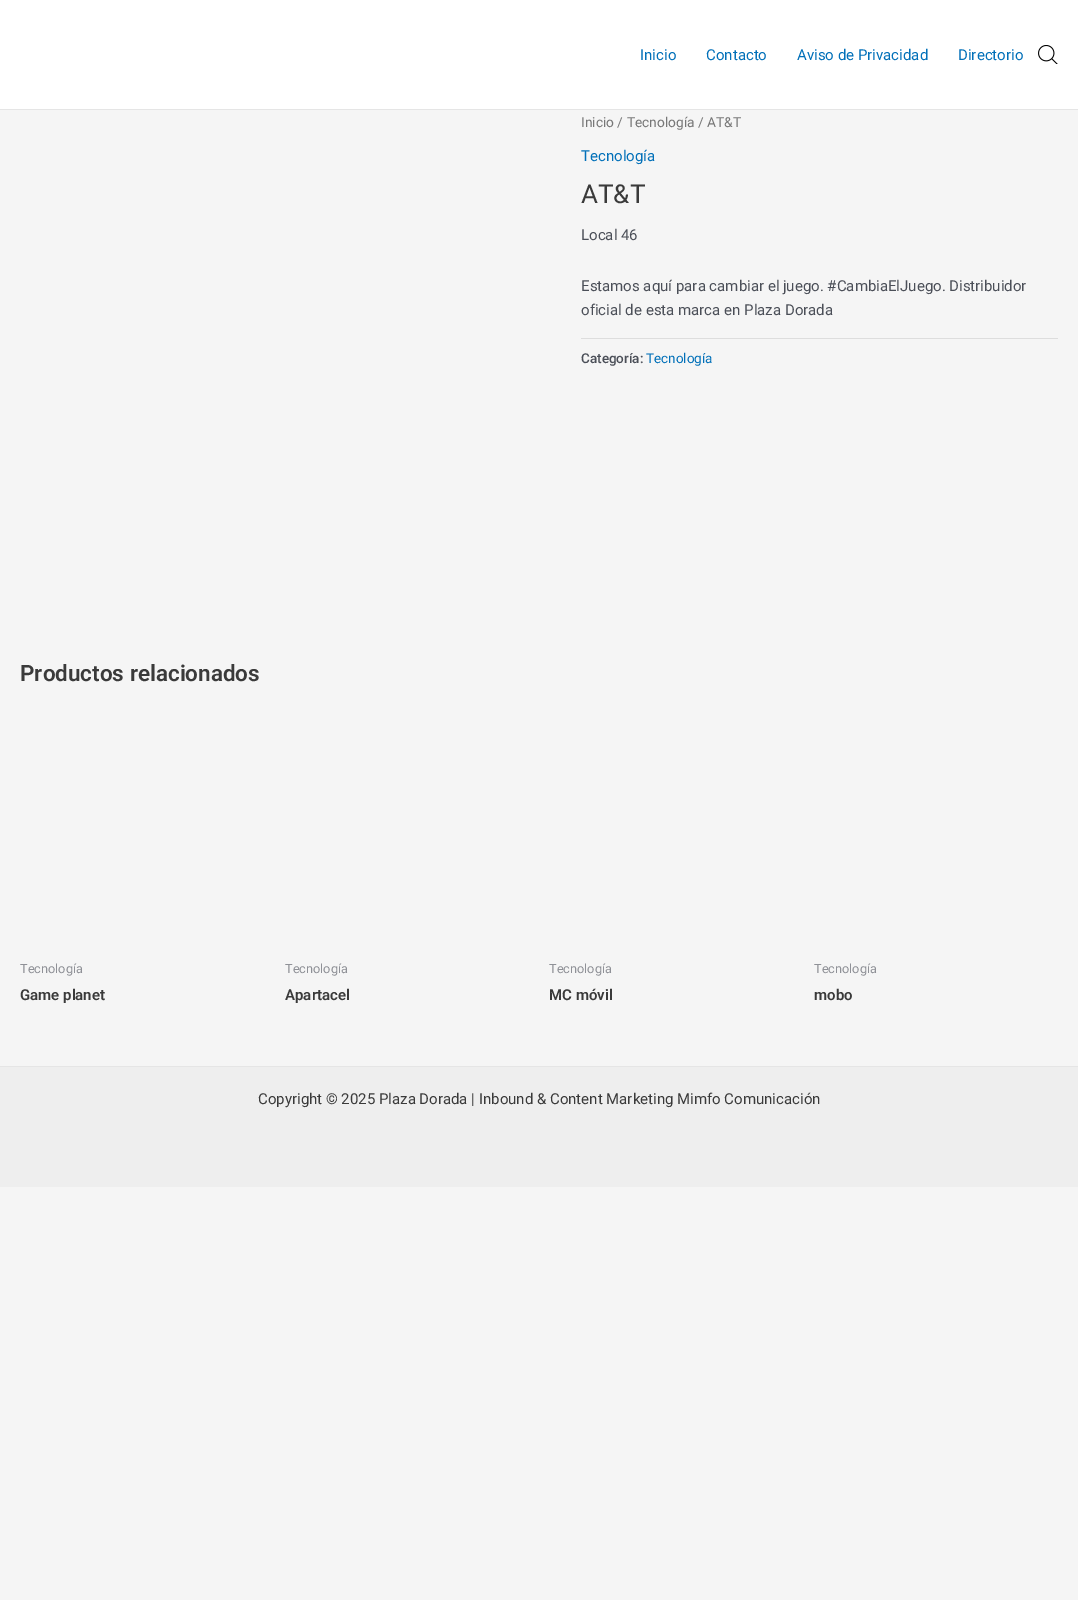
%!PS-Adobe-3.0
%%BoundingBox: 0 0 1078 1600
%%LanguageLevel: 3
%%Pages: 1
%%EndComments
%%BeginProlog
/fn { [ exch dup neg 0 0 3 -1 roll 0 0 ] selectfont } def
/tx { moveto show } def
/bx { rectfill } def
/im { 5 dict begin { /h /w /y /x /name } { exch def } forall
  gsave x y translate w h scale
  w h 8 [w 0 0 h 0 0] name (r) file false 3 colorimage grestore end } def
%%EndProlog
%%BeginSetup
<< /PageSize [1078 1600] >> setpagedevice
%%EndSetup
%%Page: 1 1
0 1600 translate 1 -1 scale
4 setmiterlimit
0.961 setgray
0 0 1078 1600 bx
1 setgray
0 0 1078 109 bx
0.898 setgray
0 109 1078 1 bx
/Roboto-Regular 15 fn
0.004 0.439 0.725 setrgbcolor
(Inicio) 640 60 tx
(Contacto) 706 60 tx
(Aviso de Privacidad) 797 60 tx
(Directorio) 958 60 tx
(image0.raw) 1038 45 20 19 im
/Roboto-Regular 13.75 fn
0.467 setgray
(Inicio / Tecnología / AT&T) 581 127 tx
/Roboto-Regular 15 fn
0.004 0.439 0.725 setrgbcolor
(Tecnología) 581 161 tx
/Roboto-Regular 26 fn
0.227 setgray
(AT&T) 581 203 tx
/Roboto-Regular 15 fn
0.294 0.31 0.345 setrgbcolor
(Local 46) 581 240 tx
(Estamos aquí para cambiar el juego. #CambiaElJuego. Distribuidor) 581 291 tx
(oficial de esta marca en Plaza Dorada) 581 315 tx
0.867 setgray
581 338 477 1 bx
/Roboto-Medium 13.5 fn
0.294 0.31 0.345 setrgbcolor
(Categoría:) 581 363 tx
/Roboto-Regular 13.5 fn
0.004 0.439 0.725 setrgbcolor
(Tecnología) 646 363 tx
/Roboto-SemiBold 22.5 fn
0.227 setgray
(Productos relacionados) 20 681 tx
/Roboto-Regular 12.75 fn
0.561 0.569 0.592 setrgbcolor
(Tecnología) 20 973 tx
/Roboto-SemiBold 15 fn
0.227 setgray
(Game planet) 20 1000 tx
/Roboto-Regular 12.75 fn
0.561 0.569 0.592 setrgbcolor
(Tecnología) 285 973 tx
/Roboto-SemiBold 15 fn
0.227 setgray
(Apartacel) 285 1000 tx
/Roboto-Regular 12.75 fn
0.561 0.569 0.592 setrgbcolor
(Tecnología) 549 973 tx
/Roboto-SemiBold 15 fn
0.227 setgray
(MC móvil) 549 1000 tx
/Roboto-Regular 12.75 fn
0.561 0.569 0.592 setrgbcolor
(Tecnología) 814 973 tx
/Roboto-SemiBold 15 fn
0.227 setgray
(mobo) 814 1000 tx
0.933 setgray
0 1067 1078 120 bx
0.898 setgray
0 1066 1078 1 bx
/Roboto-Regular 15 fn
0.227 setgray
(Copyright © 2025 Plaza Dorada | Inbound & Content Marketing Mimfo Comunicación) 258 1104 tx
showpage
%%EOF
